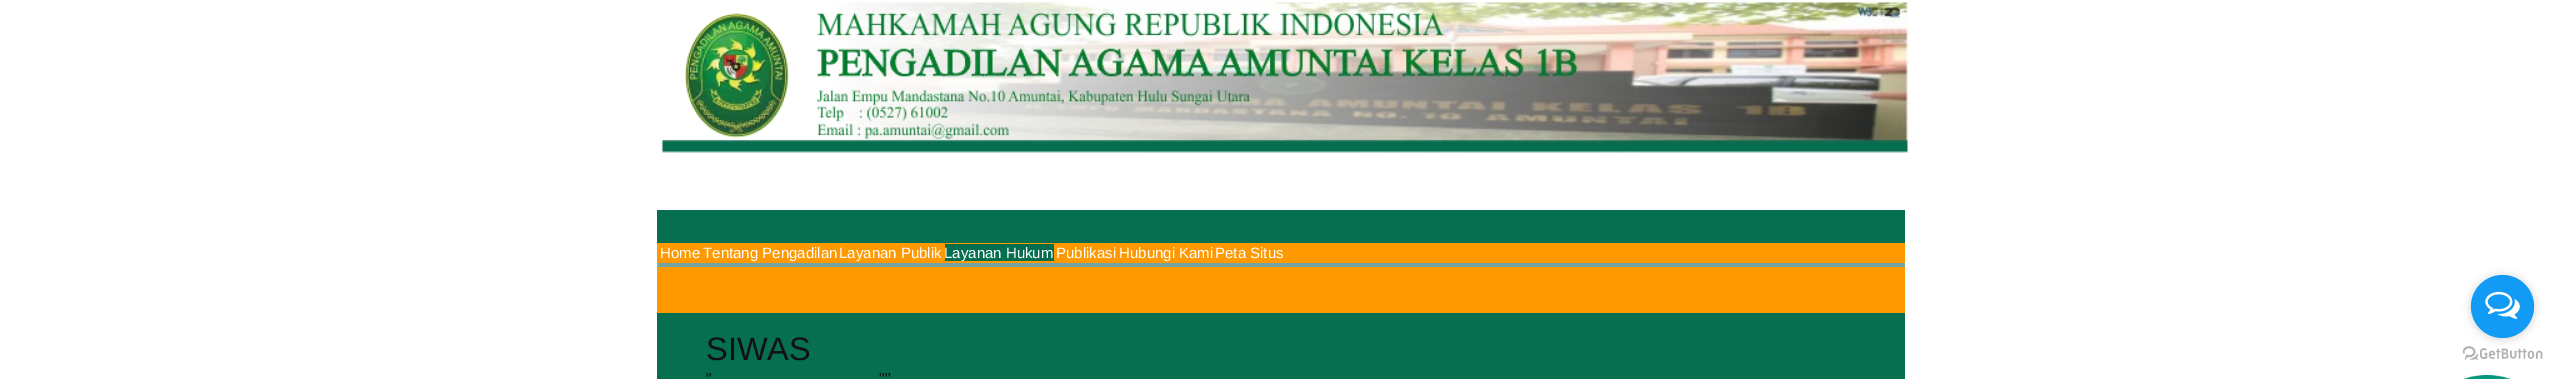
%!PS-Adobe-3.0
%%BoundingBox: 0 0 2562 379
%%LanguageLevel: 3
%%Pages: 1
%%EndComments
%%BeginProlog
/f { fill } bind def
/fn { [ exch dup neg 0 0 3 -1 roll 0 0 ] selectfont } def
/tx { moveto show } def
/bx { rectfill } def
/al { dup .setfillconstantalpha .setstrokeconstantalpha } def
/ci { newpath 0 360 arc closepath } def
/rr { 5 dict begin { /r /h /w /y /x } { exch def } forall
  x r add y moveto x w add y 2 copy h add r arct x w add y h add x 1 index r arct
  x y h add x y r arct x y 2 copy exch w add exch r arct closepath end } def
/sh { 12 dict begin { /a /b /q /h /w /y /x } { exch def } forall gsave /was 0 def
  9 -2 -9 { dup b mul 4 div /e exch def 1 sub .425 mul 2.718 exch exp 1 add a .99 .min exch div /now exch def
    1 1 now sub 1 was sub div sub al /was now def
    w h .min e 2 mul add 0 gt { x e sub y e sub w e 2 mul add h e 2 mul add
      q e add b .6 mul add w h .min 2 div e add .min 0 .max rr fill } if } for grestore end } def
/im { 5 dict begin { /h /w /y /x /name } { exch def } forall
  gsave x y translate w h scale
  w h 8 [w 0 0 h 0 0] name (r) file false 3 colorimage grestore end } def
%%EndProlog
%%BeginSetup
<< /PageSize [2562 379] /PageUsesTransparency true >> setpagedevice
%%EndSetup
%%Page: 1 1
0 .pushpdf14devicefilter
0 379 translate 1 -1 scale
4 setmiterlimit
1 setgray
0 0 2562 379 bx
(image0.raw) 661 1 1247 152 im
0.02 0.435 0.314 setrgbcolor
657 210 1248 169 bx
1 0.6 0.004 setrgbcolor
657 243 1248 70 bx
0.459 0.639 0.639 setrgbcolor
658 263 1247 4 bx
/LiberationSans-Regular 15 fn
1 setgray
(Home) 660 258 tx
(Tentang Pengadilan) 703 258 tx
(Layanan Publik) 839 258 tx
0.02 0.431 0.31 setrgbcolor
945 244 109 17 bx
1 setgray
(Layanan Hukum) 944 258 tx
(Publikasi) 1056 258 tx
(Hubungi Kami) 1119 258 tx
(Peta Situs) 1215 258 tx
/LiberationSans-Regular 32.5 fn
0.067 setgray
(SIWAS) 706 360 tx
/LiberationSans-Regular 16 fn
(") 706 384 tx
("") 879 384 tx
(image1.raw) 2463 375 48 4 im
(image3.raw) 2463 346 80 14 im
0.533 setgray
2471 276 63 63 31.5 4.5 0.4 sh
0.071 0.608 0.957 setrgbcolor
2502.5 306.5 31.5 ci f
(image2.raw) 2485 291 35 28 im
.poppdf14devicefilter showpage
%%EOF
